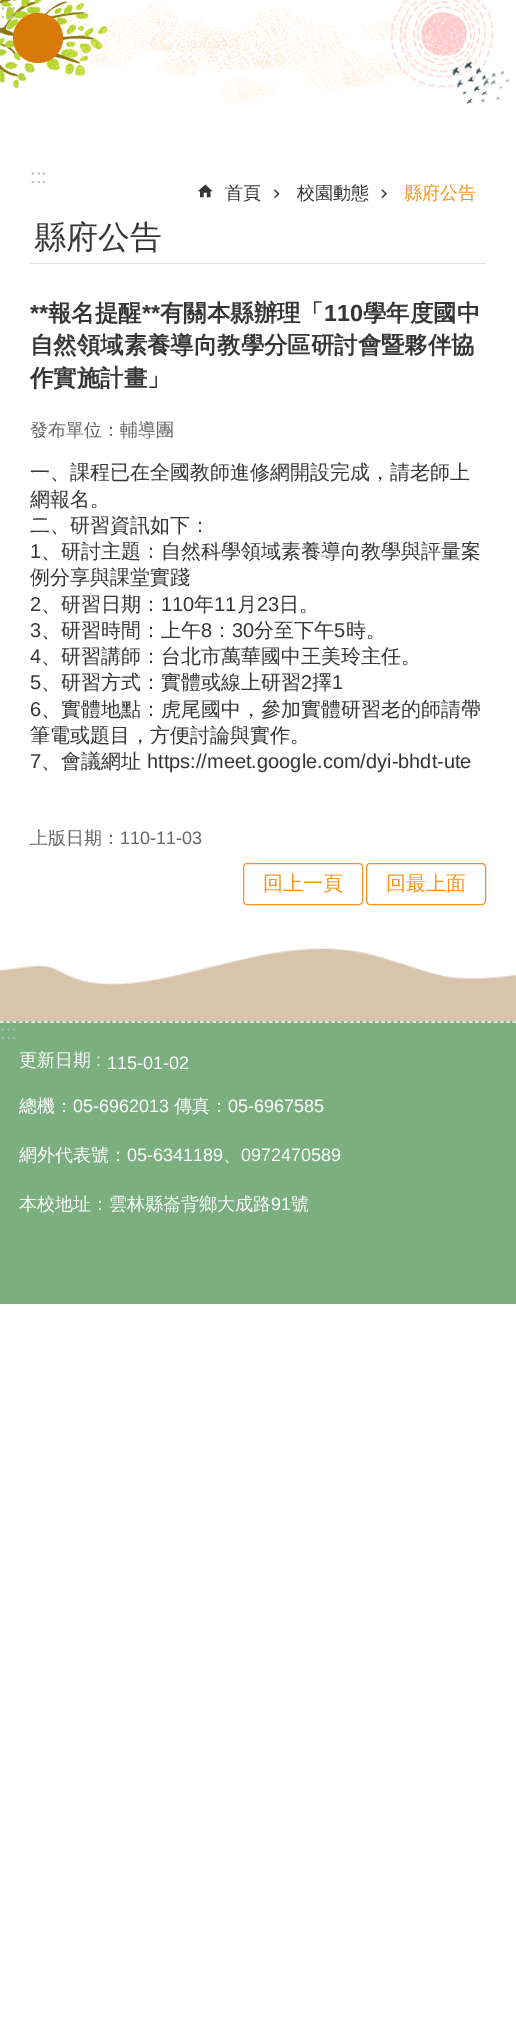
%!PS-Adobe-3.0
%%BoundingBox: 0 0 516 2043
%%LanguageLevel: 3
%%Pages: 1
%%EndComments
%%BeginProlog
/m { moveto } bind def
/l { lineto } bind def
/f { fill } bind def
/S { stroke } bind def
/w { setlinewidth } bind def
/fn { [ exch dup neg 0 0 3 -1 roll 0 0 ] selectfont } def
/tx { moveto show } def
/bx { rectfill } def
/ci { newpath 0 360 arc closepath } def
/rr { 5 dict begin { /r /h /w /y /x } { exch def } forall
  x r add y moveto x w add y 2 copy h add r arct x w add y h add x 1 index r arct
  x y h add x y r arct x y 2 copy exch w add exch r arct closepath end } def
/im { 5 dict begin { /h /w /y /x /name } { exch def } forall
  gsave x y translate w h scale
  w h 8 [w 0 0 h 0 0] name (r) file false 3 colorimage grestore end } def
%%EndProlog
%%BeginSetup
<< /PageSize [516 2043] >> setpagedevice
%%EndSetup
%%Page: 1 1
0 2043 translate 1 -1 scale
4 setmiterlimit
1 setgray
0 0 516 2043 bx
(image0.raw) 0 0 242 88 im
(image1.raw) 162 0 348 105 im
/LiberationSans-Regular 20 fn
0.714 setgray
(:::) 0 18 tx
0.851 0.478 0.031 setrgbcolor
38 38 25 ci f
0.714 setgray
(:::) 30 183 tx
(image2.raw) 197 184 16 14 im
/WenQuanYiZenHei-Medium 18 fn
0.212 setgray
(首頁) 225 199 tx
(image3.raw) 274 189 6 10 im
(校園動態) 297 199 tx
(image4.raw) 381 189 6 10 im
0.969 0.58 0.114 setrgbcolor
(縣府公告) 404 199 tx
0.894 setgray
30 263 456 1 bx
/WenQuanYiZenHei-Medium 32 fn
0.212 setgray
(縣府公告) 34 248 tx
/LiberationSans-Bold 23.4 fn
(**) 30 321 tx
/WenQuanYiZenHei-Bold 23.4 fn
(報名提醒) 48 321 tx
/LiberationSans-Bold 23.4 fn
(**) 142 321 tx
/WenQuanYiZenHei-Bold 23.4 fn
(有關本縣辦理「) 160 321 tx
/LiberationSans-Bold 23.4 fn
(110) 324 321 tx
/WenQuanYiZenHei-Bold 23.4 fn
(學年度國中) 363 321 tx
(自然領域素養導向教學分區研討會暨夥伴協) 30 353 tx
(作實施計畫」) 30 386 tx
/WenQuanYiZenHei-Medium 18 fn
0.392 setgray
(發布單位：輔導團) 30 436 tx
/WenQuanYiZenHei-Medium 20 fn
0.212 setgray
(一、課程已在全國教師進修網開設完成，請老師上) 30 479 tx
(網報名。) 30 506 tx
(二、研習資訊如下：) 30 532 tx
/LiberationSans-Regular 20 fn
(1) 30 558 tx
/WenQuanYiZenHei-Medium 20 fn
(、研討主題：自然科學領域素養導向教學與評量案) 41 558 tx
(例分享與課堂實踐) 30 584 tx
/LiberationSans-Regular 20 fn
(2) 30 611 tx
/WenQuanYiZenHei-Medium 20 fn
(、研習日期：) 41 611 tx
/LiberationSans-Regular 20 fn
(110) 161 611 tx
/WenQuanYiZenHei-Medium 20 fn
(年) 194 611 tx
/LiberationSans-Regular 20 fn
(11) 214 611 tx
/WenQuanYiZenHei-Medium 20 fn
(月) 237 611 tx
/LiberationSans-Regular 20 fn
(23) 257 611 tx
/WenQuanYiZenHei-Medium 20 fn
(日。) 279 611 tx
/LiberationSans-Regular 20 fn
(3) 30 637 tx
/WenQuanYiZenHei-Medium 20 fn
(、研習時間：上午) 41 637 tx
/LiberationSans-Regular 20 fn
(8) 201 637 tx
/WenQuanYiZenHei-Medium 20 fn
(：) 212 637 tx
/LiberationSans-Regular 20 fn
(30) 232 637 tx
/WenQuanYiZenHei-Medium 20 fn
(分至下午) 254 637 tx
/LiberationSans-Regular 20 fn
(5) 334 637 tx
/WenQuanYiZenHei-Medium 20 fn
(時。) 346 637 tx
/LiberationSans-Regular 20 fn
(4) 30 663 tx
/WenQuanYiZenHei-Medium 20 fn
(、研習講師：台北市萬華國中王美玲主任。) 41 663 tx
/LiberationSans-Regular 20 fn
(5) 30 689 tx
/WenQuanYiZenHei-Medium 20 fn
(、研習方式：實體或線上研習) 41 689 tx
/LiberationSans-Regular 20 fn
(2) 301 689 tx
/WenQuanYiZenHei-Medium 20 fn
(擇) 312 689 tx
/LiberationSans-Regular 20 fn
(1) 332 689 tx
(6) 30 716 tx
/WenQuanYiZenHei-Medium 20 fn
(、實體地點：虎尾國中，參加實體研習老的師請帶) 41 716 tx
(筆電或題目，方便討論與實作。) 30 742 tx
/LiberationSans-Regular 20 fn
(7) 30 768 tx
/WenQuanYiZenHei-Medium 20 fn
(、會議網址) 41 768 tx
/LiberationSans-Regular 20 fn
(https://meet.google.com/dyi-bhdt-ute) 147 768 tx
/WenQuanYiZenHei-Medium 18 fn
0.392 setgray
(上版日期：) 30 844 tx
/LiberationSans-Regular 18 fn
(110-11-03) 120 844 tx
0.969 0.58 0.114 setrgbcolor
243.5 863.5 119 41 3.5 rr S
/WenQuanYiZenHei-Medium 20 fn
(回上一頁) 263 890 tx
366.5 863.5 119 41 3.5 rr S
(回最上面) 386 890 tx
(image5.raw) 0 948 516 73 im
0.482 0.686 0.498 setrgbcolor
0 1021 516 283 bx
/LiberationSans-Regular 20 fn
0.714 setgray
(:::) 0 1039 tx
1 setgray
1.2 w
[3.75 2.5] 0 setdash
0 1022 m 516 1022 l S
/WenQuanYiZenHei-Medium 18 fn
(更新日期) 19 1066 tx
/LiberationSans-Regular 18 fn
(:) 96 1066 tx
(115-01-02) 107 1069 tx
/WenQuanYiZenHei-Medium 18 fn
(總機：) 19 1112 tx
/LiberationSans-Regular 18 fn
(05-6962013) 73 1112 tx
/WenQuanYiZenHei-Medium 18 fn
(傳真：) 174 1112 tx
/LiberationSans-Regular 18 fn
(05-6967585) 228 1112 tx
/WenQuanYiZenHei-Medium 18 fn
(網外代表號：) 19 1161 tx
/LiberationSans-Regular 18 fn
(05-6341189) 127 1161 tx
/WenQuanYiZenHei-Medium 18 fn
(、) 223 1161 tx
/LiberationSans-Regular 18 fn
(0972470589) 241 1161 tx
/WenQuanYiZenHei-Medium 18 fn
(本校地址：雲林縣崙背鄉大成路) 19 1210 tx
/LiberationSans-Regular 18 fn
(91) 271 1210 tx
/WenQuanYiZenHei-Medium 18 fn
(號) 291 1210 tx
showpage
%%EOF
